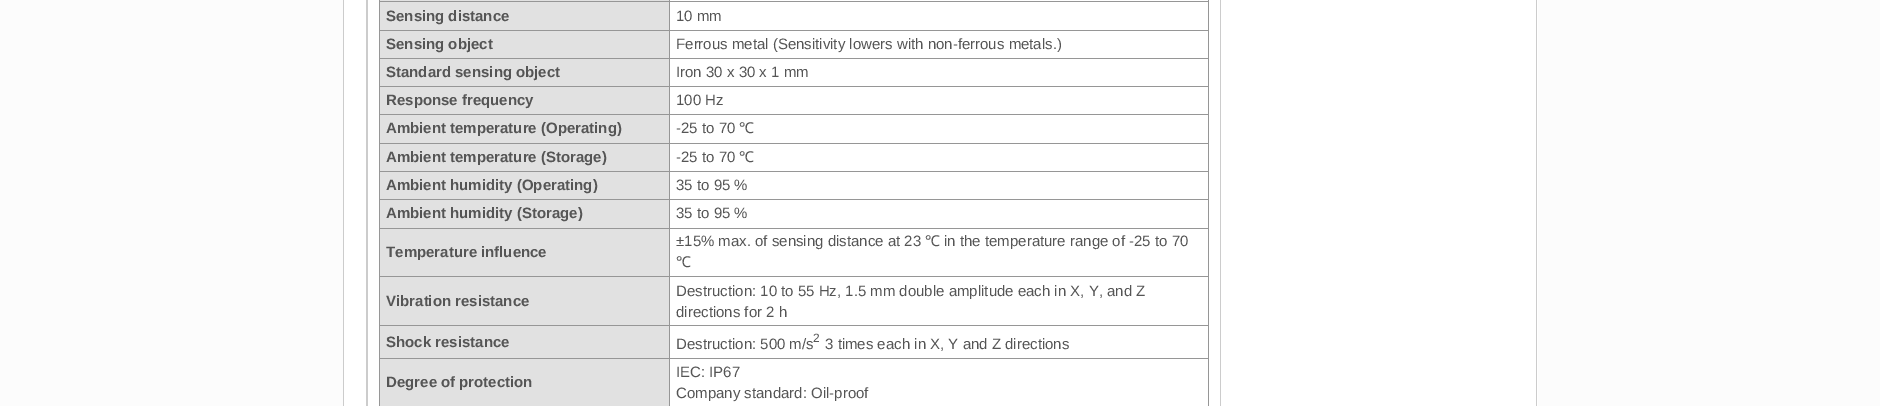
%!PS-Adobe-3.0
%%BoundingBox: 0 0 1880 406
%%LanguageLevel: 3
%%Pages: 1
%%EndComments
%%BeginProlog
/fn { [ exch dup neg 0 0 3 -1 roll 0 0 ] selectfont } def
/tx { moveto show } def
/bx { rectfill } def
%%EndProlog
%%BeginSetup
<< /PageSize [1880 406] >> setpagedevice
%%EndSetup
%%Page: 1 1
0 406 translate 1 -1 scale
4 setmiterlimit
0.988 setgray
0 0 1880 406 bx
1 setgray
344 0 1194 406 bx
0.8 setgray
1536 0 1 406 bx
343 0 1 406 bx
366 0 855 406 bx
1 setgray
368 0 852 406 bx
0.588 setgray
1208 0 1 406 bx
379 0 1 406 bx
0.882 setgray
380 0 289 30 bx
0.588 setgray
669 1 540 1 bx
669 30 540 1 bx
669 58 540 1 bx
669 86 540 1 bx
669 114 540 1 bx
669 143 540 1 bx
669 171 540 1 bx
669 199 540 1 bx
669 228 540 1 bx
0.882 setgray
380 229 289 96 bx
0.588 setgray
669 276 540 1 bx
669 325 540 1 bx
669 358 540 1 bx
669 358 1 48 bx
379 358 291 1 bx
669 325 1 34 bx
379 325 291 1 bx
669 276 1 50 bx
379 276 291 1 bx
669 228 1 50 bx
379 228 291 1 bx
669 199 1 30 bx
379 199 291 1 bx
669 171 1 29 bx
379 171 291 1 bx
669 143 1 30 bx
379 143 291 1 bx
669 114 1 30 bx
379 114 291 1 bx
669 86 1 29 bx
379 86 291 1 bx
669 58 1 30 bx
379 58 291 1 bx
669 30 1 29 bx
379 30 291 1 bx
669 1 1 30 bx
379 1 291 1 bx
669 0 1 3 bx
/LiberationSans-Bold 15 fn
0.333 setgray
(Sensing distance) 386 21 tx
/LiberationSans-Regular 15 fn
(10 mm) 676 21 tx
0.882 setgray
380 31 289 27 bx
/LiberationSans-Bold 15 fn
0.333 setgray
(Sensing object) 386 49 tx
/LiberationSans-Regular 15 fn
(Ferrous metal \(Sensitivity lowers with non-ferrous metals.\)) 676 49 tx
0.882 setgray
380 59 289 27 bx
/LiberationSans-Bold 15 fn
0.333 setgray
(Standard sensing object) 386 77 tx
/LiberationSans-Regular 15 fn
(Iron 30 x 30 x 1 mm) 676 77 tx
0.882 setgray
380 87 289 27 bx
/LiberationSans-Bold 15 fn
0.333 setgray
(Response frequency) 386 105 tx
/LiberationSans-Regular 15 fn
(100 Hz) 676 105 tx
0.882 setgray
380 115 289 28 bx
/LiberationSans-Bold 15 fn
0.333 setgray
(Ambient temperature \(Operating\)) 386 133 tx
/LiberationSans-Regular 15 fn
(-25 to 70) 676 133 tx
/NotoSans-Regular 15 fn
(℃) 739 133 tx
0.882 setgray
380 144 289 27 bx
/LiberationSans-Bold 15 fn
0.333 setgray
(Ambient temperature \(Storage\)) 386 162 tx
/LiberationSans-Regular 15 fn
(-25 to 70) 676 162 tx
/NotoSans-Regular 15 fn
(℃) 739 162 tx
0.882 setgray
380 172 289 27 bx
/LiberationSans-Bold 15 fn
0.333 setgray
(Ambient humidity \(Operating\)) 386 190 tx
/LiberationSans-Regular 15 fn
(35 to 95 %) 676 190 tx
0.882 setgray
380 200 289 28 bx
/LiberationSans-Bold 15 fn
0.333 setgray
(Ambient humidity \(Storage\)) 386 218 tx
/LiberationSans-Regular 15 fn
(35 to 95 %) 676 218 tx
/LiberationSans-Bold 15 fn
(Temperature influence) 386 257 tx
/LiberationSans-Regular 15 fn
(±15% max. of sensing distance at 23) 676 246 tx
/NotoSans-Regular 15 fn
(℃) 925 246 tx
/LiberationSans-Regular 15 fn
(in the temperature range of -25 to 70) 944 246 tx
/NotoSans-Regular 15 fn
(℃) 676 267 tx
/LiberationSans-Bold 15 fn
(Vibration resistance) 386 306 tx
/LiberationSans-Regular 15 fn
(Destruction: 10 to 55 Hz, 1.5 mm double amplitude each in X, Y, and Z) 676 296 tx
(directions for 2 h) 676 317 tx
0.882 setgray
380 326 289 32 bx
/LiberationSans-Bold 15 fn
0.333 setgray
(Shock resistance) 386 347 tx
/LiberationSans-Regular 15 fn
(Destruction: 500 m/s) 676 349 tx
/LiberationSans-Regular 12 fn
(2) 813 342 tx
/LiberationSans-Regular 15 fn
(3 times each in X, Y and Z directions) 825 349 tx
0.882 setgray
380 359 289 47 bx
/LiberationSans-Bold 15 fn
0.333 setgray
(Degree of protection) 386 387 tx
/LiberationSans-Regular 15 fn
(IEC: IP67) 676 377 tx
(Company standard: Oil-proof) 676 398 tx
showpage
%%EOF
